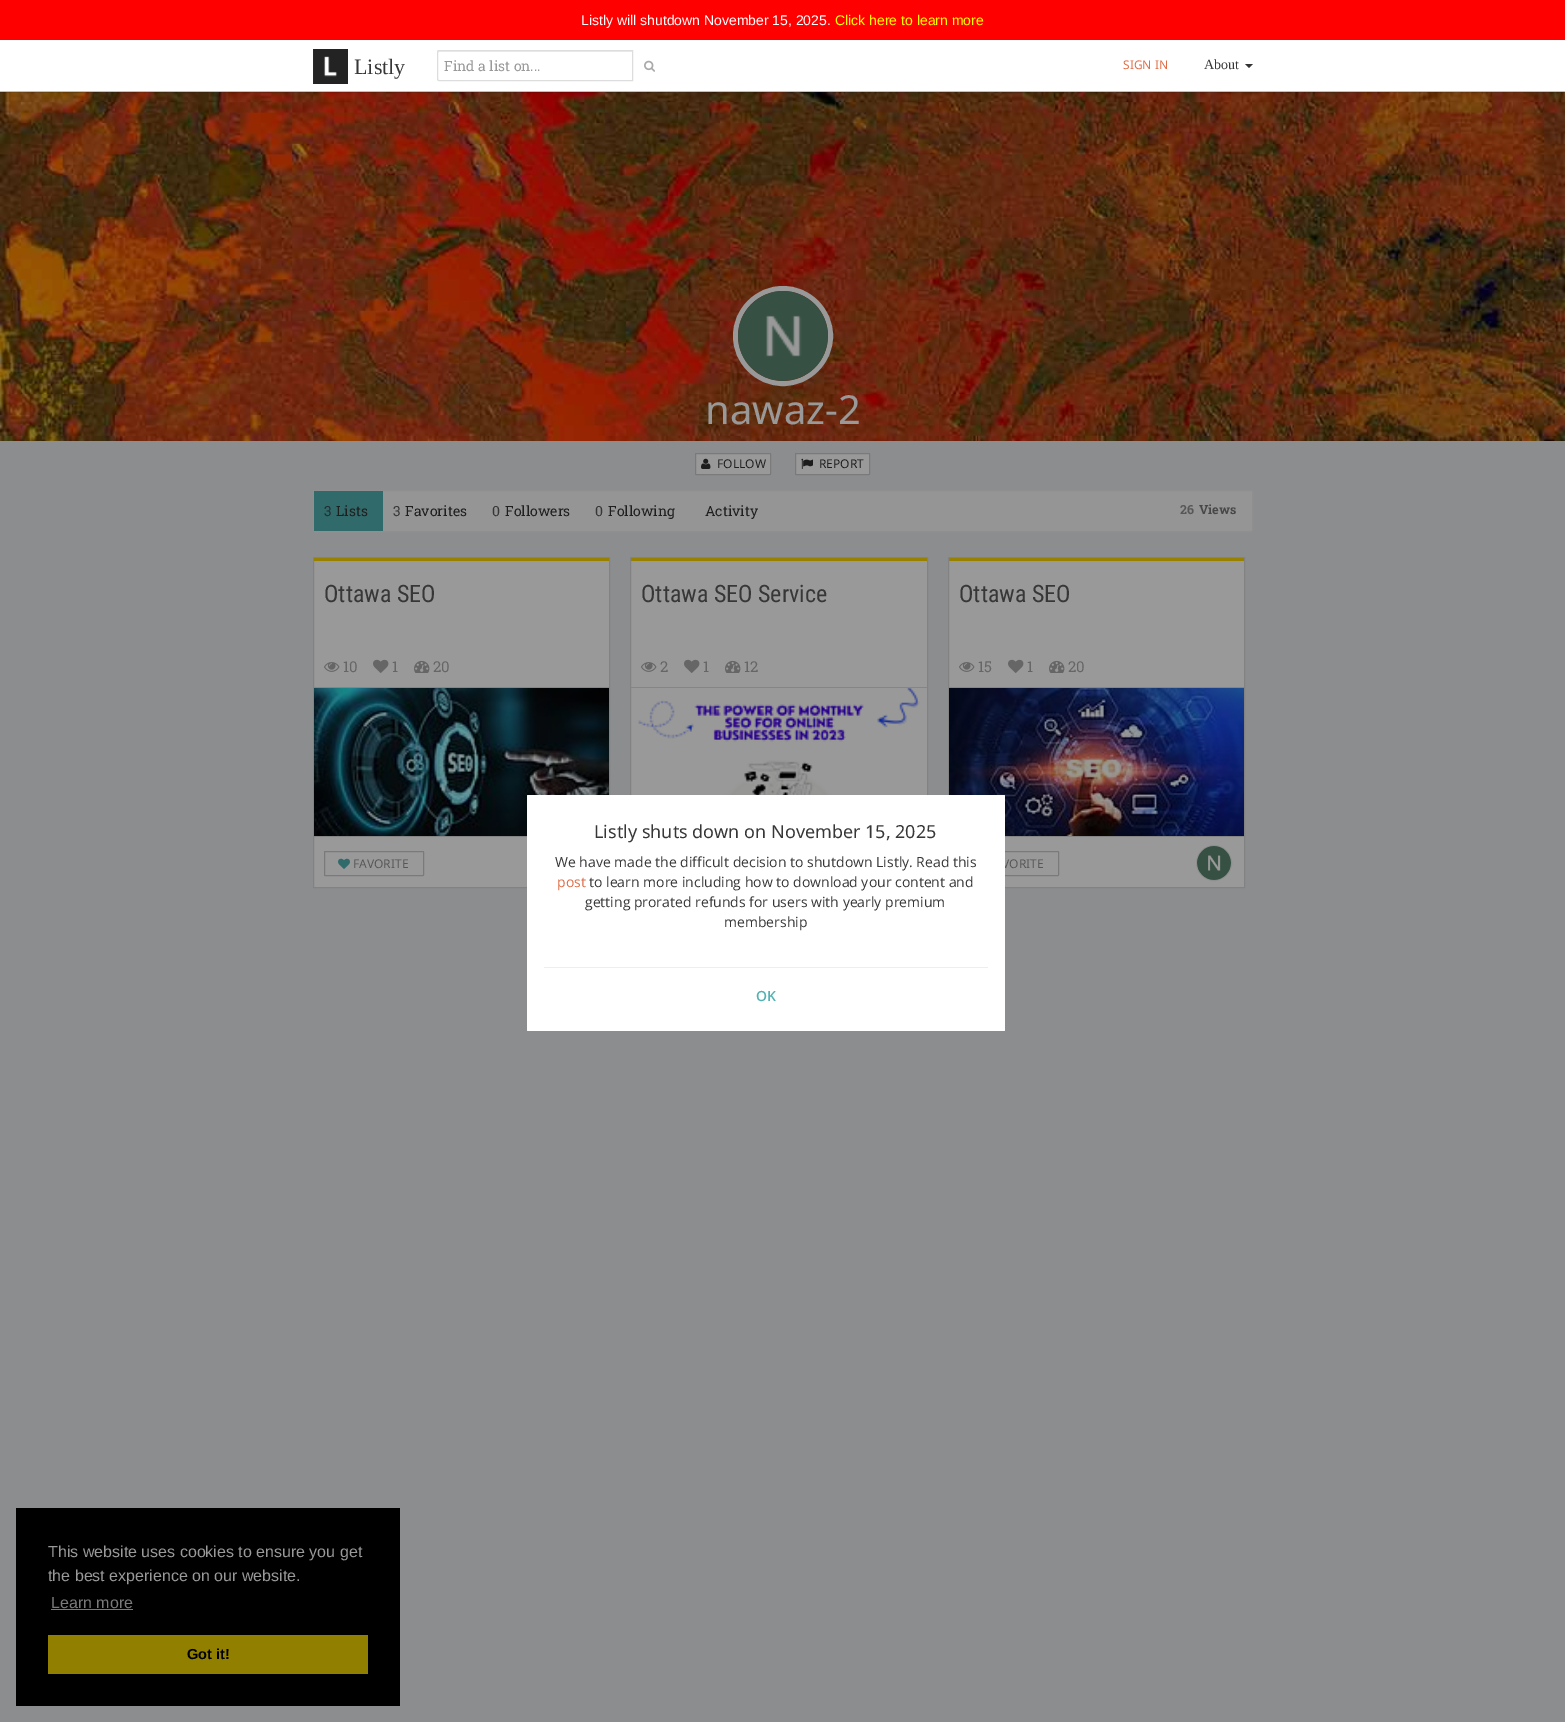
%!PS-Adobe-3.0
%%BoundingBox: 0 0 1565 1722
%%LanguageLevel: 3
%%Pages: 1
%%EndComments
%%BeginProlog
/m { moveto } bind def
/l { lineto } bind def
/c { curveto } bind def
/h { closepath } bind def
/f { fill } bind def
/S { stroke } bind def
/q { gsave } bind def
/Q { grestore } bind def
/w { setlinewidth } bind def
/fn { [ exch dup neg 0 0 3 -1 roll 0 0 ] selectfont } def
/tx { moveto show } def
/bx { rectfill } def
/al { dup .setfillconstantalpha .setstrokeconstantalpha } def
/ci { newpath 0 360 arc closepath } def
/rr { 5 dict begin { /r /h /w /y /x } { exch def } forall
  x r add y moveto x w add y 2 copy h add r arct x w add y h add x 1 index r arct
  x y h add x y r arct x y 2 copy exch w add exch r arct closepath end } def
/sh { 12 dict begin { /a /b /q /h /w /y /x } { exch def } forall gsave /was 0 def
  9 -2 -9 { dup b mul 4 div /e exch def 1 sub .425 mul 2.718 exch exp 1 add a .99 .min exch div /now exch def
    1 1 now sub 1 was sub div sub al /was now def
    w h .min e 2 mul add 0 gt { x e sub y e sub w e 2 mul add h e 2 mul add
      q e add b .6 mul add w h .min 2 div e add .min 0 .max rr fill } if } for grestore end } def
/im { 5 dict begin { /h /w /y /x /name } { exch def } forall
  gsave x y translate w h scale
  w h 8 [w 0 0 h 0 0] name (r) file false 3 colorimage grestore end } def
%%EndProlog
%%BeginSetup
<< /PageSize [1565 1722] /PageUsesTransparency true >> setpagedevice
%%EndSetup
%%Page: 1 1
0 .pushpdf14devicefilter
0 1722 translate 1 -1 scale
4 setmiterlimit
0.549 0.553 0.561 setrgbcolor
0 0 1565 1722 bx
(image2.raw) 0 92 1565 349 im
0.047 0.051 0.055 setrgbcolor
0 1 1565 92 0 1.5 0.1 sh
0.1 al
0 92 1565 1 bx
1 al
1 setgray
0 40 1565 51 bx
0.749 setgray
0 91 1565 1 bx
1 0 0 setrgbcolor
0 0 1565 40 bx
/LiberationSans-Regular 14 fn
1 setgray
(Listly will shutdown November 15, 2025.) 581 25 tx
1 1 0 setrgbcolor
(Click here to learn more) 835 25 tx
(image0.raw) 313 49 35 35 im
/LiberationSerif-Regular 22 fn
0.216 setgray
(Listly) 354 74 tx
0.925 setgray
439 52 m 632 52 l 632 51 l 438 51 l 438 53 l h f
0.867 setgray
439 50.5 m 632.5 50.5 l 632.5 80.5 l 439 80.5 l 438 80.5 437.5 80 437.5 79 c 437.5 52 l 437.5 51 438 50.5 439 50.5 c h S
/RobotoSlab-Regular 14 fn
0.6 setgray
(Find a list on...) 444 71 tx
(image1.raw) 644 60 11 12 im
/NotoSans-Regular 12 fn
0.875 0.427 0.275 setrgbcolor
(SIGN IN) 1123 69 tx
/LiberationSerif-Regular 14 fn
0.216 setgray
(About) 1204 69 tx
0.2 setgray
1245 64 m 1253 64 l 1249 68 l h f
0.6 setgray
5 w
783 336 47.5 ci S
(image3.raw) 738 291 90 90 im
/NotoSans-Regular 40 fn
(nawaz-2) 705 424 tx
695.5 453.5 75 21 0.5 rr q f Q
0.478 setgray
1 w
S
(image4.raw) 701 458 10 11 im
/NotoSans-Regular 12 fn
0.122 setgray
(FOLLOW) 717 468 tx
0.6 setgray
795.5 453.5 74 21 0.5 rr q f Q
0.478 setgray
S
(image5.raw) 801 458 12 11 im
0.122 setgray
(REPORT) 819 468 tx
0.584 setgray
313.5 490.5 939 41 1.5 rr q f Q
0.561 setgray
S
0.192 0.416 0.42 setrgbcolor
314 491 69 40 bx
/RobotoSlab-Regular 14 fn
0.133 0.18 0.18 setrgbcolor
(3) 324 516 tx
0.122 setgray
(Lists) 336 516 tx
0.216 setgray
(3) 393 516 tx
0.122 setgray
(Favorites) 405 516 tx
0.216 setgray
(0) 492 516 tx
0.122 setgray
(Followers) 505 516 tx
0.216 setgray
(0) 595 516 tx
0.122 setgray
(Following) 608 516 tx
(Activity) 705 516 tx
/RobotoSlab-Bold 12.5 fn
0.341 setgray
(26) 1180 514 tx
0.278 setgray
(Views) 1199 514 tx
0.6 setgray
314 561 295 326 bx
0.51 setgray
313.5 557.5 296 330 rectstroke
0.6 0.506 0 setrgbcolor
314 558 295 3 bx
/RobotoCondensed-Regular 24 fn
0.216 setgray
(Ottawa SEO) 324 602 tx
(image6.raw) 324 662 16 10 im
/RobotoSlab-Regular 15 fn
0.4 setgray
(10) 343 672 tx
(image7.raw) 373 659 16 14 im
(1) 392 672 tx
(image8.raw) 414 660 16 13 im
(20) 433 672 tx
(image9.raw) 314 688 295 148 im
0.522 setgray
314 687 295 1 bx
314 836 213 1 bx
0.478 setgray
324.5 851.5 99 24 0.5 rr S
(image10.raw) 338 858 12 11 im
/NotoSans-Regular 12 fn
0.341 setgray
(FAVORITE) 353 868 tx
0.6 setgray
631 561 296 234 bx
0.51 setgray
630.5 557.5 297 330 rectstroke
0.6 0.506 0 setrgbcolor
631 558 296 3 bx
/RobotoCondensed-Regular 24 fn
0.216 setgray
(Ottawa SEO Service) 641 602 tx
(image6.raw) 641 662 16 10 im
/RobotoSlab-Regular 15 fn
0.4 setgray
(2) 660 672 tx
(image7.raw) 684 659 16 14 im
(1) 703 672 tx
(image8.raw) 725 660 16 13 im
(12) 744 672 tx
(image11.raw) 638 688 282 107 im
0.522 setgray
631 687 296 1 bx
0.6 setgray
949 561 295 326 bx
0.51 setgray
948.5 557.5 296 330 rectstroke
0.6 0.506 0 setrgbcolor
949 558 295 3 bx
/RobotoCondensed-Regular 24 fn
0.216 setgray
(Ottawa SEO) 959 602 tx
(image6.raw) 959 662 16 10 im
/RobotoSlab-Regular 15 fn
0.4 setgray
(15) 978 672 tx
(image7.raw) 1008 659 16 14 im
(1) 1027 672 tx
(image8.raw) 1049 660 16 13 im
(20) 1068 672 tx
(image12.raw) 949 688 295 148 im
0.522 setgray
949 687 295 1 bx
1005 836 239 1 bx
0.478 setgray
959.5 851.5 99 24 0.5 rr S
/NotoSans-Regular 12 fn
0.341 setgray
(VORITE) 1002 868 tx
0.561 setgray
1214 863 17.5 ci S
(image13.raw) 1197 846 34 34 im
1 setgray
527 795 478 236 1 rr f
/NotoSans-Regular 18 fn
0.216 setgray
(Listly shuts down on November 15, 2025) 594 838 tx
/OpenSans-Regular 14 fn
(We have made the difficult decision to shutdown Listly. Read this) 555 867 tx
0.875 0.427 0.275 setrgbcolor
(post) 557 887 tx
0.216 setgray
(to learn more including how to download your content and) 589 887 tx
(getting prorated refunds for users with yearly premium) 585 907 tx
(membership) 724 927 tx
0.933 setgray
544 967 444 1 bx
/OpenSans-SemiBold 14 fn
0.322 0.694 0.702 setrgbcolor
(OK) 756 1001 tx
0 setgray
16 1508 384 198 bx
/LiberationSans-Regular 16 fn
0.6 setgray
(This website uses cookies to ensure you get) 48 1557 tx
(the best experience on our website.) 48 1581 tx
0.478 setgray
(Learn more) 51 1608 tx
51 1609 82 1 bx
0.569 0.502 0 setrgbcolor
48 1635 320 39 bx
/LiberationSans-Bold 14.5 fn
0 setgray
(Got it!) 187 1659 tx
.poppdf14devicefilter showpage
%%EOF
